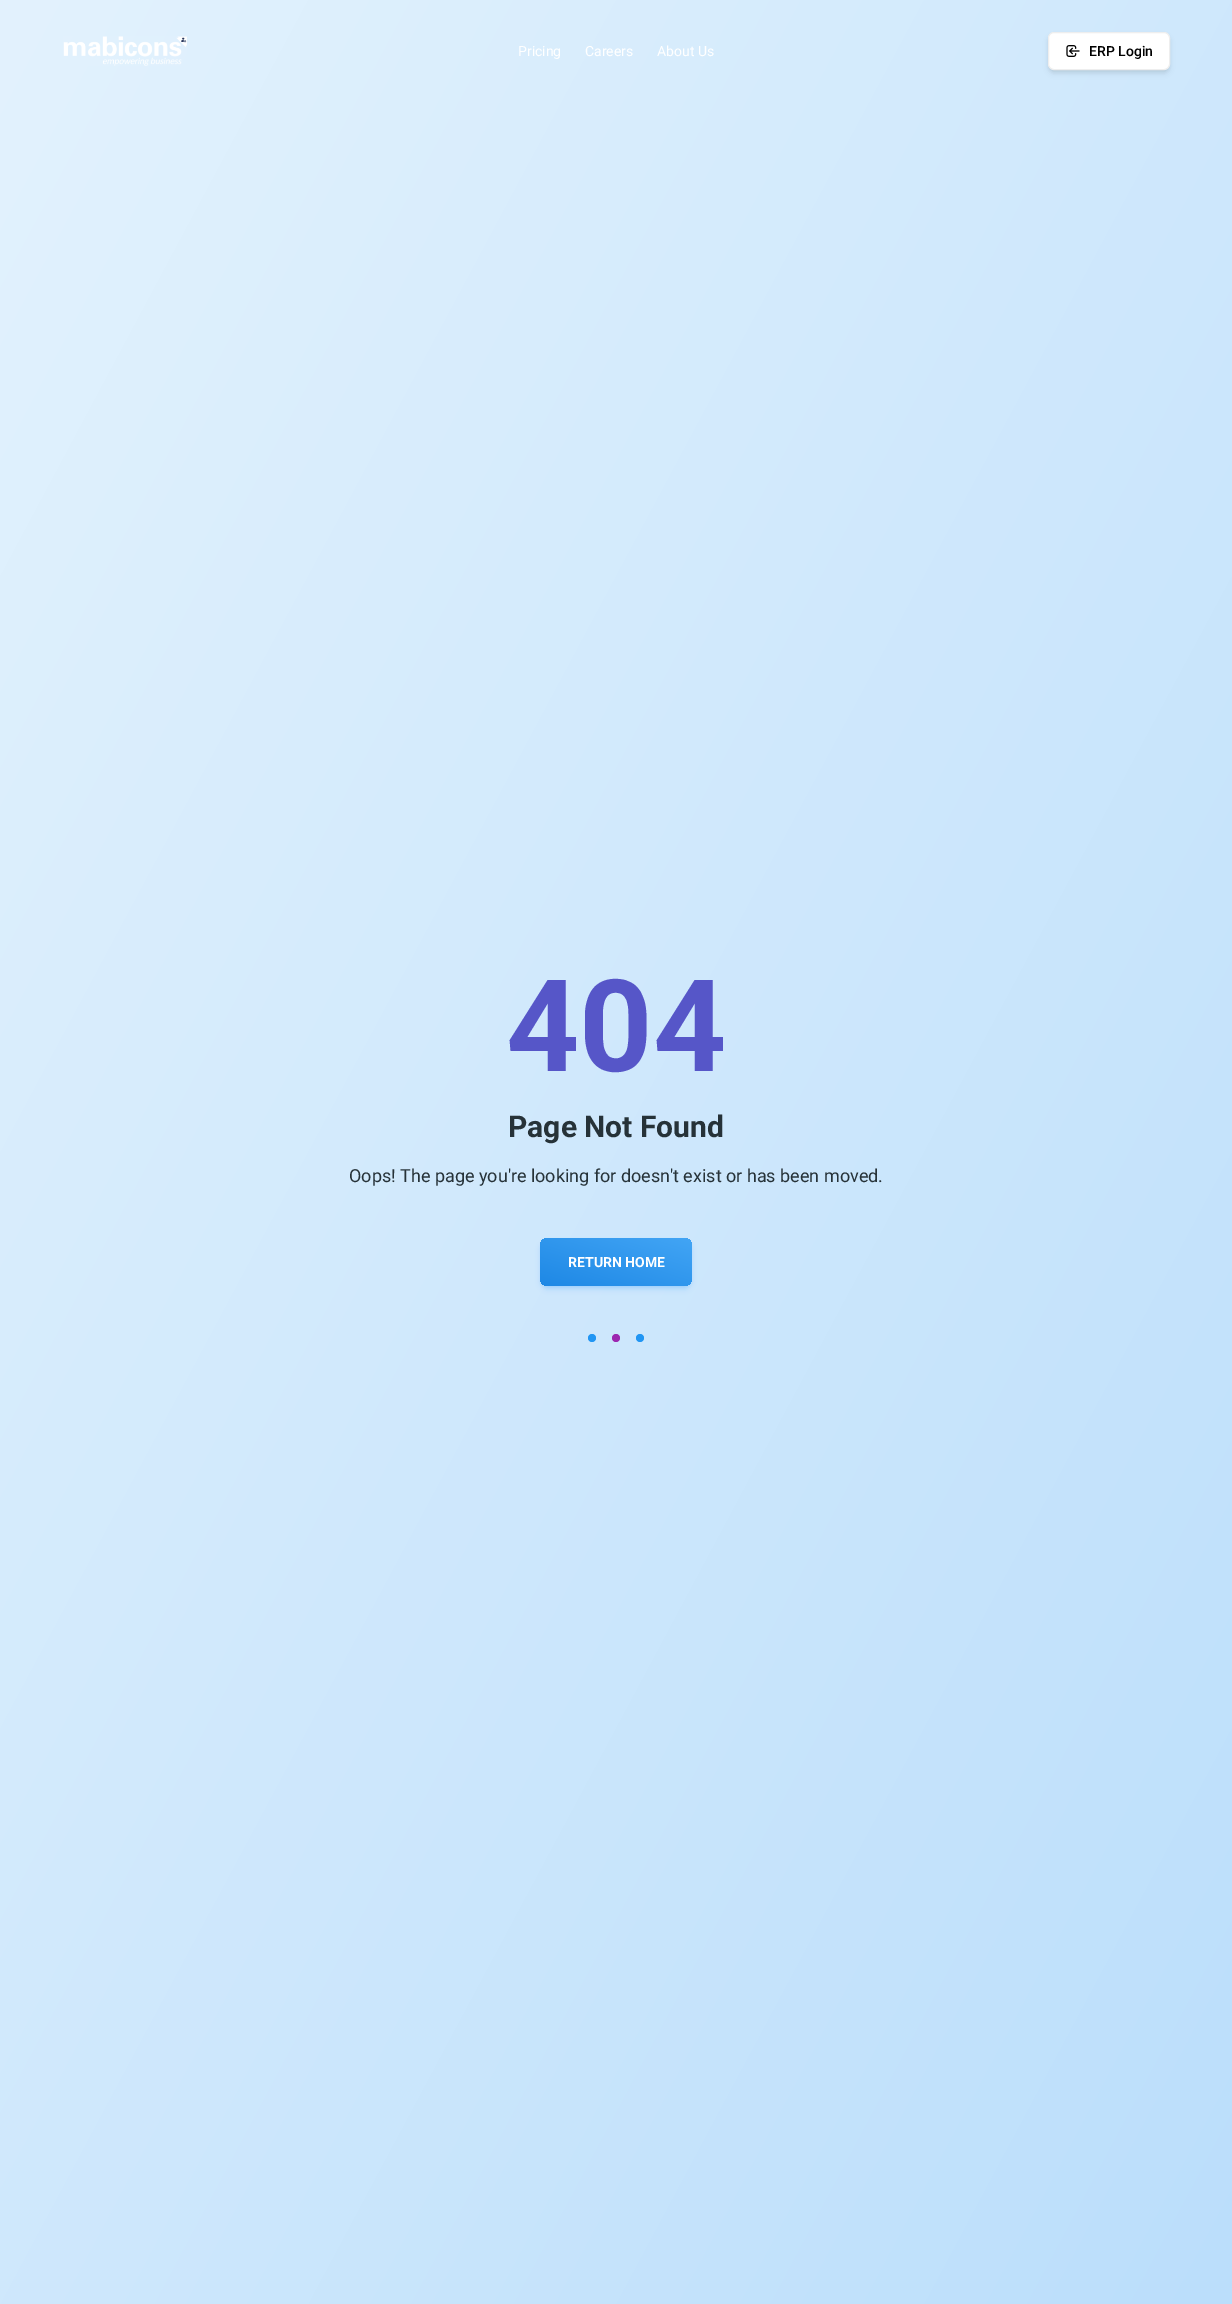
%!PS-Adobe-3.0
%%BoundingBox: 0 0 1232 2304
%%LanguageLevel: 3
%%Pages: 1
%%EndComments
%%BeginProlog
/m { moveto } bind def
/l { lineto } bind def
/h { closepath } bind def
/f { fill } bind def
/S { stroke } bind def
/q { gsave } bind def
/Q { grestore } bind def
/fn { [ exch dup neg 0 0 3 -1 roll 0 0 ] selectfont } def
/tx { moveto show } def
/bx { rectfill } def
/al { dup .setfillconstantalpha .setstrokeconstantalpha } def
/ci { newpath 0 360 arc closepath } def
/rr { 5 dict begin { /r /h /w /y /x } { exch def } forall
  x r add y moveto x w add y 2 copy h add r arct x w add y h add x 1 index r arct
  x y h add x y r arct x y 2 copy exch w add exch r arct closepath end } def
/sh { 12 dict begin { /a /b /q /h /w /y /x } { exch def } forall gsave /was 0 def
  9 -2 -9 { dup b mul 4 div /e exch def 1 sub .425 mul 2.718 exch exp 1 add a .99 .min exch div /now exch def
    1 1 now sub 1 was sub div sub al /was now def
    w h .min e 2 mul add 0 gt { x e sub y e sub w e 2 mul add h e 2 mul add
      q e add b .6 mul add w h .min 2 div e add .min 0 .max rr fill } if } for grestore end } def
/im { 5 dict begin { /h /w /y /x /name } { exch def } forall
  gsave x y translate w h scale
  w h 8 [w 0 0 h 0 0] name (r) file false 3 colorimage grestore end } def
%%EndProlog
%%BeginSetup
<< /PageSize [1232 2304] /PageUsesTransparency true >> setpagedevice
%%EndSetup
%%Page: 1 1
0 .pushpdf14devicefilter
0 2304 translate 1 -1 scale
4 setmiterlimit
1 setgray
0 0 1232 2304 bx
q 0 0 m 1232 0 l 1232 2304 l 0 2304 l h clip newpath
<< /ShadingType 2 /ColorSpace /DeviceRGB /Coords [-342 640 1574 1664] /Extend [true true] /Function << /FunctionType 2 /Domain [0 1] /C0 [0.89 0.949 0.992] /C1 [0.733 0.871 0.984] /N 1 >> >> shfill Q
(image0.raw) 63 36 124 30 im
/Roboto-Regular 14 fn
(Pricing) 518 56 tx
(Careers) 585 56 tx
(About Us) 657 56 tx
0 setgray
1050 36 118 34 4 2 0.1 sh
1049 37 120 36 5 3 0.1 sh
1 setgray
1048.5 32.5 121 37 5.5 rr q f Q
0.933 setgray
S
(image1.raw) 1066 45 14 12 im
/Roboto-Medium 14 fn
0 setgray
(ERP Login) 1089 56 tx
/Roboto-Bold 128 fn
0.337 0.337 0.784 setrgbcolor
(404) 506 1071 tx
/Roboto-Bold 30 fn
0.149 0.196 0.22 setrgbcolor
(Page Not Found) 508 1137 tx
/Roboto-Regular 18 fn
(Oops! The page you're looking for doesn't exist or has been moved.) 349 1182 tx
0.129 0.588 0.953 setrgbcolor
542 1242 148 44 6 2 0.2 sh
541 1243 150 46 7 3 0.2 sh
q 540 1238 152 48 8 rr clip newpath
<< /ShadingType 2 /ColorSpace /DeviceRGB /Coords [602 1306 630 1218] /Extend [true true] /Function << /FunctionType 2 /Domain [0 1] /C0 [0.118 0.533 0.898] /C1 [0.259 0.647 0.961] /N 1 >> >> shfill Q
/Roboto-Bold 14 fn
1 setgray
(RETURN HOME) 568 1267 tx
0.129 0.588 0.953 setrgbcolor
592 1338 4 ci f
0.612 0.153 0.69 setrgbcolor
616 1338 4 ci f
0.129 0.588 0.953 setrgbcolor
640 1338 4 ci f
.poppdf14devicefilter showpage
%%EOF
